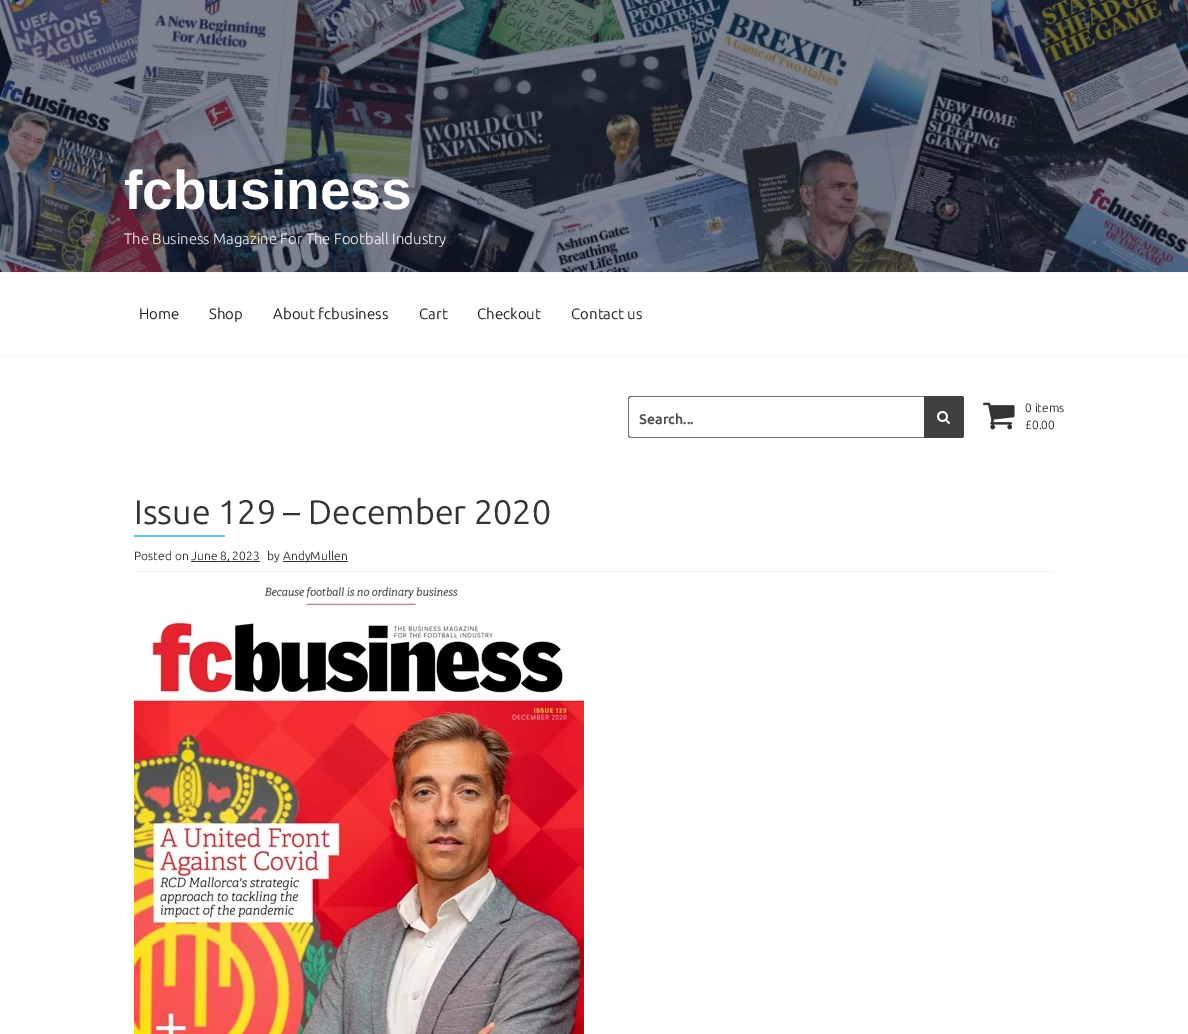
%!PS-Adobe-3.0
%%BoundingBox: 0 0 1188 1034
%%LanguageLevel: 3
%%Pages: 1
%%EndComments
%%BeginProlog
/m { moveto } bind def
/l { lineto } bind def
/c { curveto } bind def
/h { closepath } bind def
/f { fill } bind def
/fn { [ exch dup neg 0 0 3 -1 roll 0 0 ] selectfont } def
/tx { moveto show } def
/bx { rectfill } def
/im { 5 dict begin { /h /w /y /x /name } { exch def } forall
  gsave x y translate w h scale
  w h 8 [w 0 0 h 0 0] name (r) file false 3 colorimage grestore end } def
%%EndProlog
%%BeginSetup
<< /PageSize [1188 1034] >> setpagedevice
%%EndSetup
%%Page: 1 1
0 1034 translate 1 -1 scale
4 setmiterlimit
1 setgray
0 0 1188 1034 bx
(image0.raw) 0 0 1188 272 im
/LiberationSans-Bold 55 fn
(fcbusiness) 124 209 tx
/Ubuntu-Light 15 fn
(The Business Magazine For The Football Industry) 124 244 tx
0.961 setgray
0 272 1188 1 bx
0 355 1188 1 bx
/Ubuntu-Regular 15 fn
0.122 setgray
(Home) 139 319 tx
(Shop) 209 319 tx
(About fcbusiness) 273 319 tx
(Cart) 419 319 tx
(Checkout) 477 319 tx
(Contact us) 571 319 tx
0.451 setgray
631 396 m 925 396 l 927 396 928 397 928 399 c 928 435 l 928 437 927 438 925 438 c 631 438 l 629 438 628 437 628 435 c 628 399 l 628 397 629 396 631 396 c h 631 397 m 925 397 l 927 397 928 398 928 399 c 928 435 l 928 436 927 437 925 437 c 631 437 l 630 437 629 436 629 435 c 629 399 l 629 398 630 397 631 397 c h eofill
/Ubuntu-Bold 14 fn
0.302 setgray
(Search...) 639 424 tx
0.251 setgray
924 396 m 961 396 l 962.5 396 964 397.5 964 399 c 964 435 l 964 436.5 962.5 438 961 438 c 924 438 l h f
924 396 m 961 396 l 963 396 964 397 964 399 c 964 435 l 964 437 963 438 961 438 c 924 438 l h 924 397 m 961 397 l 962 397 963 398 963 399 c 963 435 l 963 436 962 437 961 437 c 924 437 l h eofill
(image1.raw) 937 411 13 13 im
(image2.raw) 983 402 32 28 im
/Ubuntu-Regular 12 fn
0.2 setgray
(0 items) 1025 412 tx
(£0.00) 1025 429 tx
/Ubuntu-Regular 34 fn
(Issue 129 – December 2020) 134 524 tx
0.38 0.78 0.929 setrgbcolor
134 535 91 2 bx
0.949 setgray
134 571 920 1 bx
/Ubuntu-Regular 12 fn
0.2 setgray
(Posted on) 134 560 tx
191 561 69 1 bx
(June 8, 2023) 191 560 tx
(by) 267 560 tx
283 561 65 1 bx
(AndyMullen) 283 560 tx
(image3.raw) 134 584 450 450 im
showpage
%%EOF
